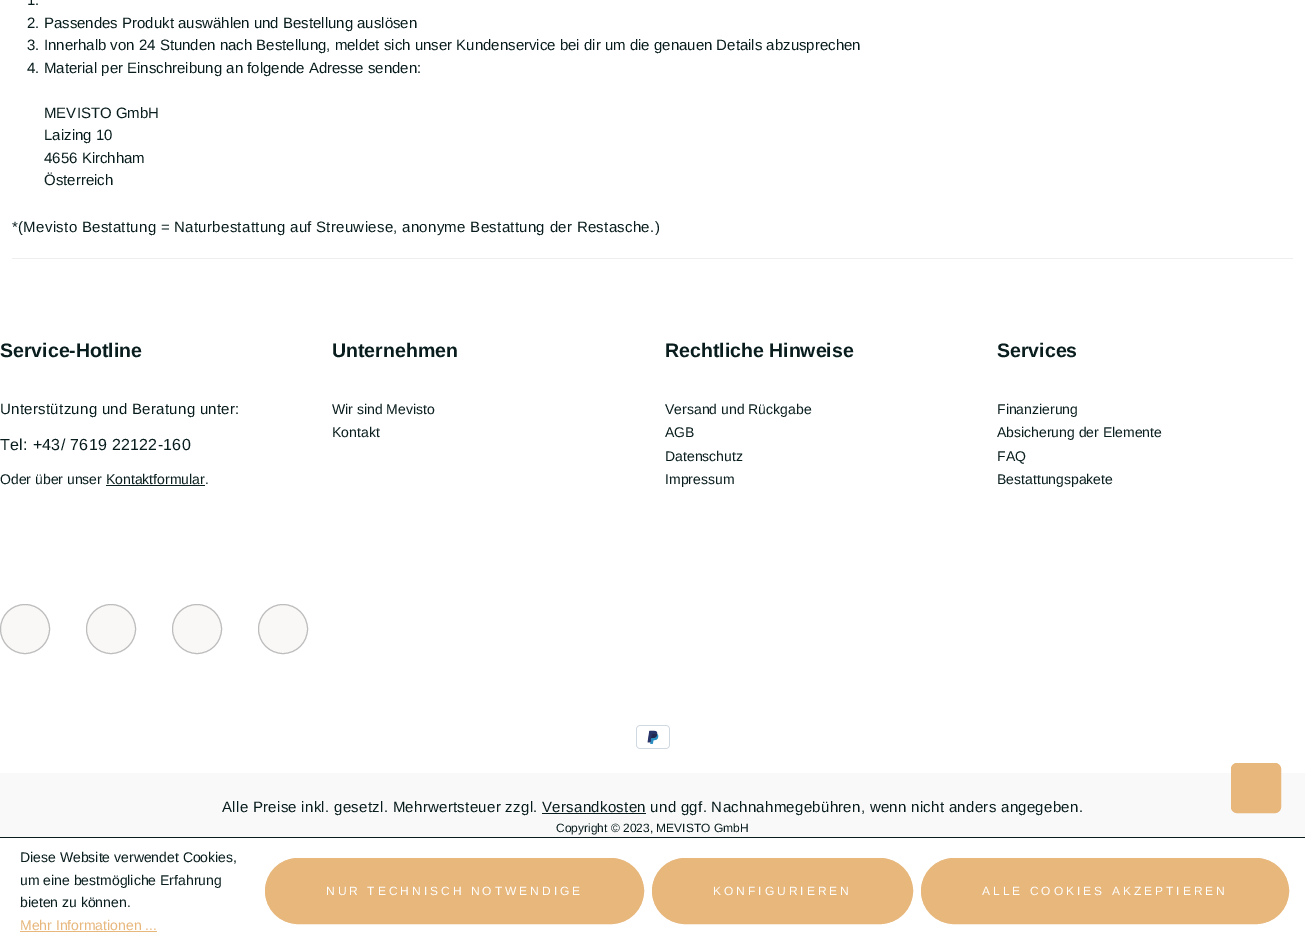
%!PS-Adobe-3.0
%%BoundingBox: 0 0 1305 944
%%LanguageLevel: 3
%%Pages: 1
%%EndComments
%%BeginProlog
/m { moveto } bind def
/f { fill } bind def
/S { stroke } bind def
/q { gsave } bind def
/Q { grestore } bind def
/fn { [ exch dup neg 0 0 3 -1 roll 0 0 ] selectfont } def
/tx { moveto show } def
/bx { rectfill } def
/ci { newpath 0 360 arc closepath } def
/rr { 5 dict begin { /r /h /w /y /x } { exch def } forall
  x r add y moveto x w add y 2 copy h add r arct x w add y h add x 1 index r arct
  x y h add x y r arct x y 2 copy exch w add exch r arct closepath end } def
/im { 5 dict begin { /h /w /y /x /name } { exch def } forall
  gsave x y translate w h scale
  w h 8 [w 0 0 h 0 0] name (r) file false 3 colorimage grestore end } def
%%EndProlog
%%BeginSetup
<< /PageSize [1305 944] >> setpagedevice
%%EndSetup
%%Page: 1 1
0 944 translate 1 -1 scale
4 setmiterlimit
1 setgray
0 0 1305 944 bx
/LiberationSans-Regular 15 fn
0.039 0.114 0.118 setrgbcolor
(1.) 27 5 tx
(2. Passendes Produkt auswählen und Bestellung auslösen) 27 28 tx
(3. Innerhalb von 24 Stunden nach Bestellung, meldet sich unser Kundenservice bei dir um die genauen Details abzusprechen) 27 50 tx
(4. Material per Einschreibung an folgende Adresse senden:) 27 73 tx
(MEVISTO GmbH) 44 118 tx
(Laizing 10) 44 140 tx
(4656 Kirchham) 44 163 tx
(Österreich) 44 185 tx
12 232 m 0.3 0 (*\(Mevisto Bestattung = Naturbestattung auf Streuwiese, anonyme Bestattung der Restasche.\)) ashow
0.933 0.933 0.941 setrgbcolor
12 258 1281 1 bx
/LiberationSans-Bold 19.5 fn
0.039 0.114 0.118 setrgbcolor
(Service-Hotline) 0 357 tx
/LiberationSans-Regular 15 fn
0 414 m 0.3 0 (Unterstützung und Beratung unter:) ashow
/LiberationSans-Regular 16 fn
0 450 m 0.3 0 (Tel: +43/ 7619 22122-160) ashow
/LiberationSans-Regular 14 fn
(Oder über unser Kontaktformular.) 0 484 tx
106 485 99 1 bx
/LiberationSans-Bold 19.5 fn
(Unternehmen) 332 357 tx
/LiberationSans-Regular 14 fn
(Wir sind Mevisto) 332 414 tx
(Kontakt) 332 437 tx
/LiberationSans-Bold 19.5 fn
(Rechtliche Hinweise) 665 357 tx
/LiberationSans-Regular 14 fn
(Versand und Rückgabe) 665 414 tx
(AGB) 665 437 tx
(Datenschutz) 665 461 tx
(Impressum) 665 484 tx
/LiberationSans-Bold 19.5 fn
(Services) 997 357 tx
/LiberationSans-Regular 14 fn
(Finanzierung) 997 414 tx
(Absicherung der Elemente) 997 437 tx
(FAQ) 997 461 tx
(Bestattungspakete) 997 484 tx
0.976 0.973 0.965 setrgbcolor
25 629 24.5 ci q f Q
0.741 setgray
S
0.976 0.973 0.965 setrgbcolor
111 629 24.5 ci q f Q
0.741 setgray
S
0.976 0.973 0.965 setrgbcolor
197 629 24.5 ci q f Q
0.741 setgray
S
0.976 0.973 0.965 setrgbcolor
283 629 24.5 ci q f Q
0.741 setgray
S
(image0.raw) 636 725 34 24 im
0.976 setgray
0 773 1305 64 bx
/LiberationSans-Regular 15 fn
0.039 0.114 0.118 setrgbcolor
222 812 m 0.3 0 (Alle Preise inkl. gesetzl. Mehrwertsteuer zzgl. Versandkosten und ggf. Nachnahmegebühren, wenn nicht anders angegeben.) ashow
542 813 104 1 bx
/LiberationSans-Regular 12 fn
(Copyright © 2023, MEVISTO GmbH) 556 832 tx
0.906 0.718 0.486 setrgbcolor
1231.5 763.5 49 49 5.5 rr q f Q
S
0.039 0.114 0.118 setrgbcolor
0 837 1305 1 bx
/LiberationSans-Regular 14 fn
(Diese Website verwendet Cookies,) 20 862 tx
(um eine bestmögliche Erfahrung) 20 885 tx
(bieten zu können.) 20 907 tx
0.906 0.718 0.486 setrgbcolor
(Mehr Informationen ...) 20 930 tx
20 931 137 1 bx
265.5 858.5 378 65 32.5 rr q f Q
S
/LiberationSans-Regular 12 fn
1 setgray
326 895 m 3 0 (NUR TECHNISCH NOTWENDIGE) ashow
0.906 0.718 0.486 setrgbcolor
652.5 858.5 260 65 32.5 rr q f Q
S
1 setgray
713 895 m 3 0 (KONFIGURIEREN) ashow
0.906 0.718 0.486 setrgbcolor
921.5 858.5 367 65 32.5 rr q f Q
S
1 setgray
982 895 m 3 0 (ALLE COOKIES AKZEPTIEREN) ashow
showpage
%%EOF
